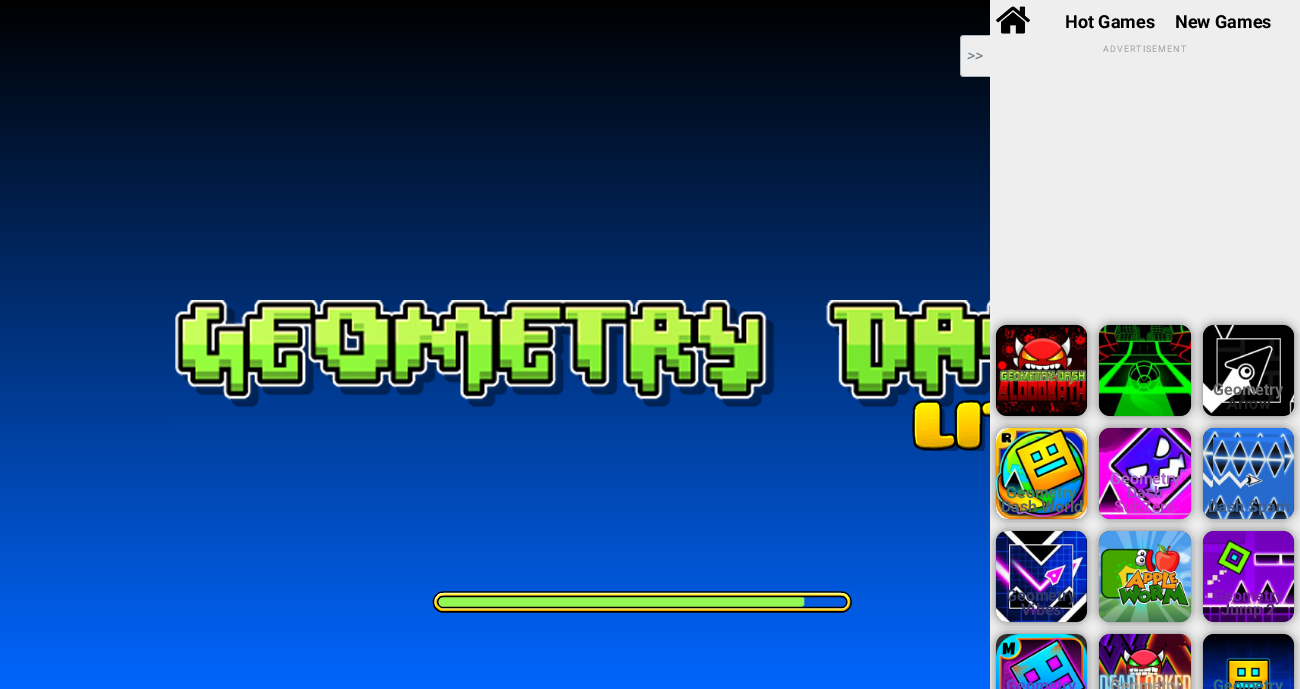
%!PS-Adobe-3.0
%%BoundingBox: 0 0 1300 689
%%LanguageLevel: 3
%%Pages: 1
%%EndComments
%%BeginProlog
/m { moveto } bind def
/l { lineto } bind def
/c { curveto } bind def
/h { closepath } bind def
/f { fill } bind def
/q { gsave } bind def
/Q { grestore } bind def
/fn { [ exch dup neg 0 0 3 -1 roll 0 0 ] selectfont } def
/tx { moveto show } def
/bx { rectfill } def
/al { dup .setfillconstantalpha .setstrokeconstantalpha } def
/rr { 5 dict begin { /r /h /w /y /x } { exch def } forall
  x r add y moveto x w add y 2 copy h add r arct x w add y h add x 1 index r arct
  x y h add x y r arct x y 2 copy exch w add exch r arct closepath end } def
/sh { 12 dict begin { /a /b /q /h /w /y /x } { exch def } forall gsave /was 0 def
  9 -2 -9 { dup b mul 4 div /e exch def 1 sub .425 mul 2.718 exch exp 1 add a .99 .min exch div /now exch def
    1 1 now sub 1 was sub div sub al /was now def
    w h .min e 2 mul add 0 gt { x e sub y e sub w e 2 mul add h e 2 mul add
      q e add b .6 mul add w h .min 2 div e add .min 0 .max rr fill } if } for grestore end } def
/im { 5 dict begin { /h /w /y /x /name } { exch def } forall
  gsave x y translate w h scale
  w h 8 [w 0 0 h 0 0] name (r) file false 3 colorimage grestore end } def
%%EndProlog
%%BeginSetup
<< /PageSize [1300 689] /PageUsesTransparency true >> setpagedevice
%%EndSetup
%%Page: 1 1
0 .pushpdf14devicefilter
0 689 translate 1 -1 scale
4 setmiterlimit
1 setgray
0 0 1300 689 bx
q 0 0 m 990 0 l 990 689 l 0 689 l h clip newpath
<< /ShadingType 2 /ColorSpace /DeviceRGB /Coords [650 0 650 689] /Extend [true true] /Function << /FunctionType 2 /Domain [0 1] /C0 [0 0 0] /C1 [0 0.4 1] /N 1 >> >> shfill Q
(image0.raw) 175 300 815 151 im
(image2.raw) 438 597 367 10 im
(image1.raw) 432 591 420 22 im
0.933 setgray
964 35 m 990 35 l 990 77 l 964 77 l 962 77 960 75 960 73 c 960 39 l 960 37 962 35 964 35 c h f
0.678 0.71 0.741 setrgbcolor
964 35 m 963 35 962 35.5 961 36 c 962 37 l 962 36 963 36 964 36 c 989 36 l 990 35 l h 990 77 m 989 76 l 964 76 l 963 76 962 76 962 75 c 961 76 l 962 76.5 963 77 964 77 c h f
960 39 m 960 73 l 960 74 960.5 75 961 76 c 962 75 l 961 75 961 74 961 73 c 961 39 l 961 38 961 37 962 37 c 961 36 l 960.5 37 960 38 960 39 c h f
/Roboto-Italic 16 fn
0.424 0.459 0.49 setrgbcolor
(>>) 967 61 tx
0.933 setgray
990 0 310 689 bx
(image3.raw) 996 6 34 28 im
/Roboto-Bold 18 fn
0 setgray
(Hot Games) 1065 28 tx
(New Games) 1175 28 tx
/Roboto-Regular 9 fn
0.62 setgray
1103 52 m 1 0 (ADVERTISEMENT) ashow
q
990 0 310 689 rectclip
0 setgray
996 325 91 91 11 5 0.5 sh
Q
(image4.raw) 996 325 91 91 im
/Roboto-Bold 16 fn
0.482 0.573 0.227 setrgbcolor
(Geometry) 1006 381 tx
0 setgray
1099 325 92 91 11 5 0.5 sh
(image5.raw) 1099 325 92 91 im
1203 325 91 91 11 5 0.5 sh
(image6.raw) 1203 325 91 91 im
0.427 setgray
(Geometry) 1213 395 tx
0.129 setgray
(Arrow) 1227 409 tx
q
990 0 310 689 rectclip
0 setgray
996 428 91 91 11 5 0.5 sh
Q
(image7.raw) 996 428 91 91 im
0.259 0.518 0.396 setrgbcolor
(Geometry) 1006 498 tx
0.337 0.396 0.365 setrgbcolor
(Dash World) 1001 512 tx
0 setgray
1099 428 92 91 11 5 0.5 sh
(image8.raw) 1099 428 92 91 im
0.667 0.388 0.776 setrgbcolor
(Geometry) 1110 484 tx
0.624 0.275 0.741 setrgbcolor
(Dash) 1127 498 tx
0.78 0.184 0.78 setrgbcolor
(SubZero) 1114 512 tx
0 setgray
1203 428 91 91 11 5 0.5 sh
(image9.raw) 1203 428 91 91 im
q
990 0 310 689 rectclip
996 531 91 91 11 5 0.5 sh
Q
(image10.raw) 996 531 91 91 im
1099 531 92 91 11 5 0.5 sh
(image11.raw) 1099 531 92 91 im
1203 531 91 91 11 5 0.5 sh
0.247 0.38 0.565 setrgbcolor
(Dash Spam) 1208 512 tx
0.192 0.227 0.404 setrgbcolor
(Geometry) 1006 601 tx
0.22 0.22 0.424 setrgbcolor
(Vibes) 1021 615 tx
(image12.raw) 1203 531 91 91 im
0.463 0.106 0.659 setrgbcolor
(Geometry) 1213 601 tx
q
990 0 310 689 rectclip
0 setgray
996 634 91 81 11 5 0.5 sh
Q
q 1007 634 m 1076 634 l 1082 634 1087 639 1087 645 c 1087 689 l 996 689 l 996 645 l 996 639 1001 634 1007 634 c h clip newpath
<< /ShadingType 2 /ColorSpace /DeviceRGB /Coords [1087 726 994 632] /Extend [true true] /Function << /FunctionType 3 /Domain [0 1] /Functions [<< /FunctionType 2 /Domain [0 1] /C0 [0.188 0.184 0.184] /C1 [0.188 0.184 0.184] /N 1 >> << /FunctionType 2 /Domain [0 1] /C0 [0.165 0.161 0.161] /C1 [0.165 0.161 0.161] /N 1 >> << /FunctionType 2 /Domain [0 1] /C0 [0.188 0.184 0.184] /C1 [0.188 0.184 0.184] /N 1 >> << /FunctionType 2 /Domain [0 1] /C0 [0.165 0.161 0.161] /C1 [0.165 0.161 0.161] /N 1 >> << /FunctionType 2 /Domain [0 1] /C0 [0.188 0.184 0.184] /C1 [0.188 0.184 0.184] /N 1 >> << /FunctionType 2 /Domain [0 1] /C0 [0.165 0.161 0.161] /C1 [0.165 0.161 0.161] /N 1 >> << /FunctionType 2 /Domain [0 1] /C0 [0.188 0.184 0.184] /C1 [0.188 0.184 0.184] /N 1 >> << /FunctionType 2 /Domain [0 1] /C0 [0.165 0.161 0.161] /C1 [0.165 0.161 0.161] /N 1 >> << /FunctionType 2 /Domain [0 1] /C0 [0.188 0.184 0.184] /C1 [0.188 0.184 0.184] /N 1 >> << /FunctionType 2 /Domain [0 1] /C0 [0.165 0.161 0.161] /C1 [0.165 0.161 0.161] /N 1 >> << /FunctionType 2 /Domain [0 1] /C0 [0.188 0.184 0.184] /C1 [0.188 0.184 0.184] /N 1 >> << /FunctionType 2 /Domain [0 1] /C0 [0.165 0.161 0.161] /C1 [0.165 0.161 0.161] /N 1 >> << /FunctionType 2 /Domain [0 1] /C0 [0.188 0.184 0.184] /C1 [0.188 0.184 0.184] /N 1 >> << /FunctionType 2 /Domain [0 1] /C0 [0.165 0.161 0.161] /C1 [0.165 0.161 0.161] /N 1 >> << /FunctionType 2 /Domain [0 1] /C0 [0.188 0.184 0.184] /C1 [0.188 0.184 0.184] /N 1 >> << /FunctionType 2 /Domain [0 1] /C0 [0.165 0.161 0.161] /C1 [0.165 0.161 0.161] /N 1 >> << /FunctionType 2 /Domain [0 1] /C0 [0.188 0.184 0.184] /C1 [0.188 0.184 0.184] /N 1 >> << /FunctionType 2 /Domain [0 1] /C0 [0.165 0.161 0.161] /C1 [0.165 0.161 0.161] /N 1 >> << /FunctionType 2 /Domain [0 1] /C0 [0.188 0.184 0.184] /C1 [0.188 0.184 0.184] /N 1 >> << /FunctionType 2 /Domain [0 1] /C0 [0.165 0.161 0.161] /C1 [0.165 0.161 0.161] /N 1 >> << /FunctionType 2 /Domain [0 1] /C0 [0.188 0.184 0.184] /C1 [0.188 0.184 0.184] /N 1 >> << /FunctionType 2 /Domain [0 1] /C0 [0.165 0.161 0.161] /C1 [0.165 0.161 0.161] /N 1 >>] /Bounds [0.05 0.09 0.14 0.18 0.23 0.27 0.32 0.36 0.41 0.45 0.5 0.55 0.59 0.64 0.68 0.73 0.77 0.82 0.86 0.91 0.95] /Encode [0 1 0 1 0 1 0 1 0 1 0 1 0 1 0 1 0 1 0 1 0 1 0 1 0 1 0 1 0 1 0 1 0 1 0 1 0 1 0 1 0 1 0 1] >> >> shfill Q
(image13.raw) 996 634 91 55 im
0 setgray
1099 634 92 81 11 5 0.5 sh
(image14.raw) 1099 634 92 55 im
1203 634 91 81 11 5 0.5 sh
0.38 0.184 0.486 setrgbcolor
(Jump 2) 1221 615 tx
0.365 0.278 0.816 setrgbcolor
(Geometry) 1006 691 tx
0.643 0.596 0.549 setrgbcolor
(Geometry) 1110 691 tx
(image15.raw) 1203 634 91 55 im
0.184 0.42 0.522 setrgbcolor
(Geometry) 1213 691 tx
.poppdf14devicefilter showpage
%%EOF
